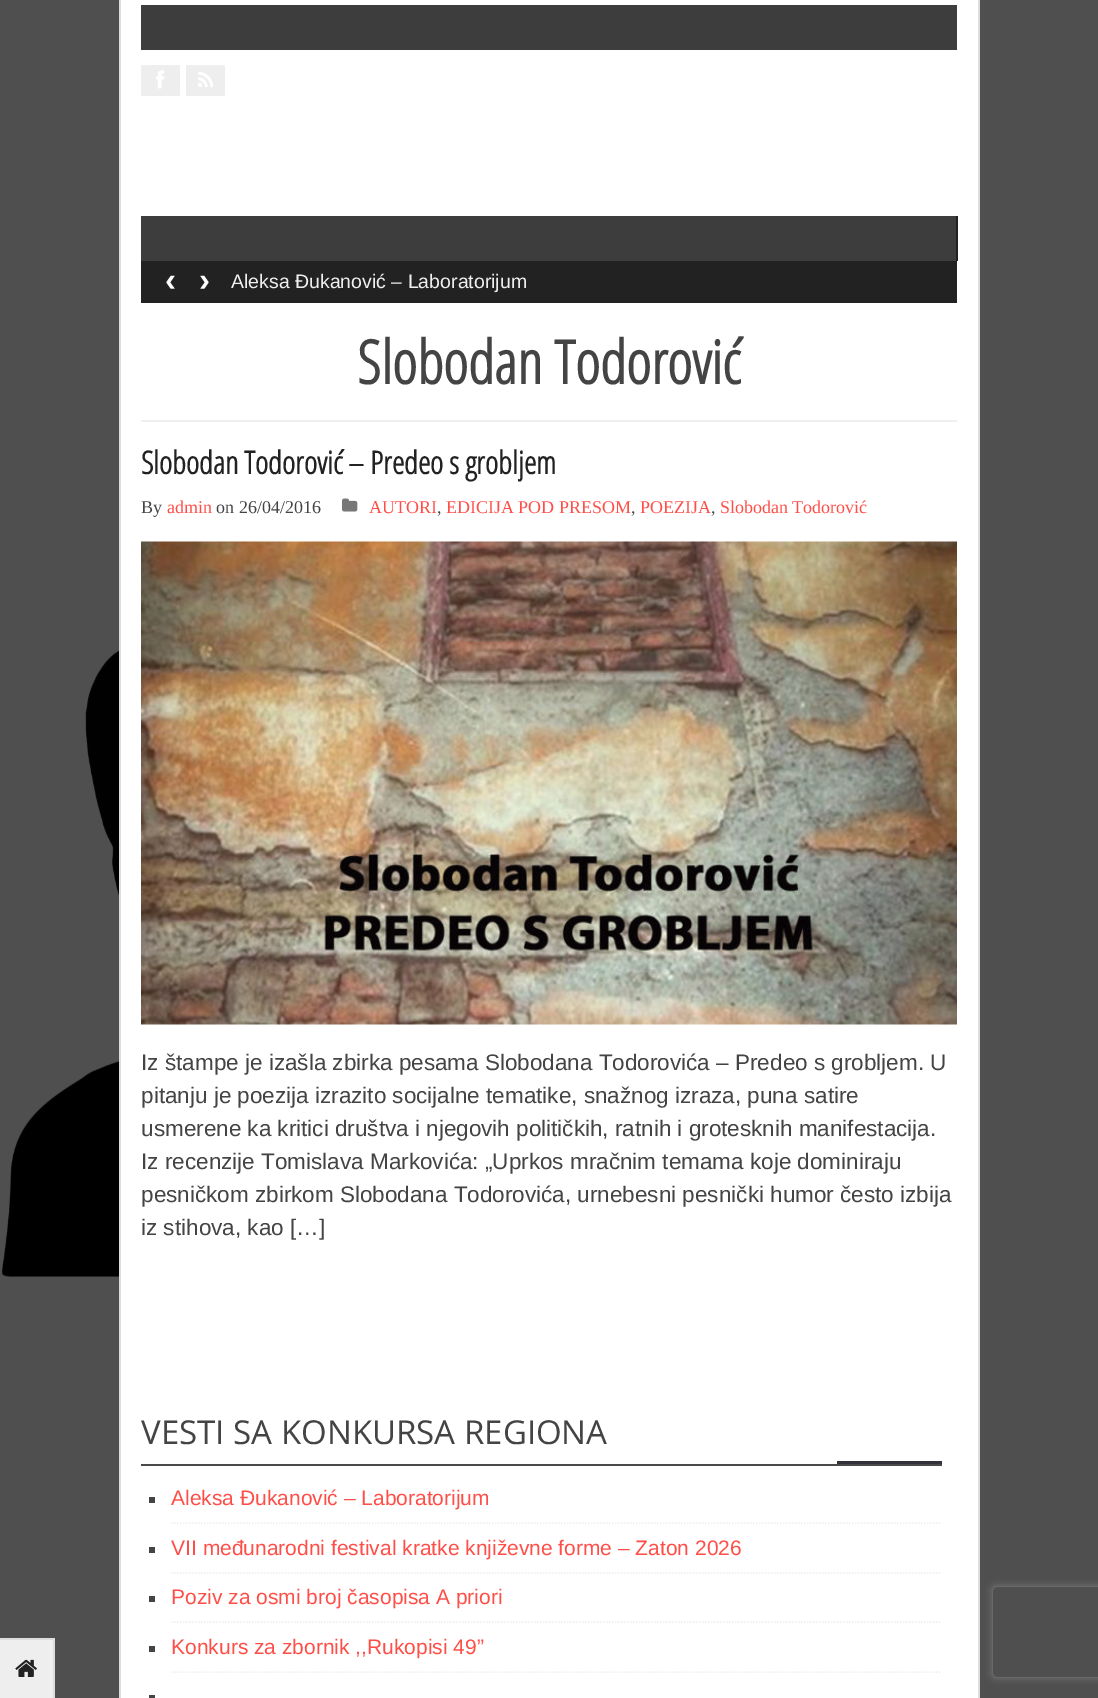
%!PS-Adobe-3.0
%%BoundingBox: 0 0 1098 1698
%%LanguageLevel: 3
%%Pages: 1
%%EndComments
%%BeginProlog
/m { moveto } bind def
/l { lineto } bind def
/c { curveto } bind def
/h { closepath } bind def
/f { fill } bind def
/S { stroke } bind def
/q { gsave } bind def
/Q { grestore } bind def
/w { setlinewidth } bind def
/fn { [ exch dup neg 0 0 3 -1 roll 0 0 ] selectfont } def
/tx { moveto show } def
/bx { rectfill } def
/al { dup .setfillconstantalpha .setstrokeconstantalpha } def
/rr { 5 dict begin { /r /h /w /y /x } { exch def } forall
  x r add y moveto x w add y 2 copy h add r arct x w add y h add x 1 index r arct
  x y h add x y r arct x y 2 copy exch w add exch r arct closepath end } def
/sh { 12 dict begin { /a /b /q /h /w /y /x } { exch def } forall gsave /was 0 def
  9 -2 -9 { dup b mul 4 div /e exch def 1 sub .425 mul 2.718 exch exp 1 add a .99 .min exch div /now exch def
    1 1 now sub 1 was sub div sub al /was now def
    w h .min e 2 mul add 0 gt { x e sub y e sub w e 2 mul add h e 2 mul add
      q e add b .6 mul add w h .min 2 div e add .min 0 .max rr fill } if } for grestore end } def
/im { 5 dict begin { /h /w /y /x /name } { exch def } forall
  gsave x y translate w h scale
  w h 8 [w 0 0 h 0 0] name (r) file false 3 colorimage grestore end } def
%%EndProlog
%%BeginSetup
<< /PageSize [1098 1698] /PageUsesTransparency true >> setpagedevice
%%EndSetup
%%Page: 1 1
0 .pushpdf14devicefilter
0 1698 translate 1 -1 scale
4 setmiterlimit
0.31 setgray
0 0 1098 1698 bx
(image0.raw) 2 650 117 627 im
0.933 setgray
0 1640 53 58 bx
0.867 setgray
0 1638 54 2 bx
53 1638 2 60 bx
(image1.raw) 15 1659 22 18 im
1 setgray
121 0 857 1698 bx
0.867 setgray
978 0 2 1698 bx
119 0 2 1698 bx
0.239 setgray
141 5 816 45 bx
0.933 setgray
141 65 39 31 1.5 rr f
(image2.raw) 156 70 9 19 im
186 65 39 31 1.5 rr f
(image3.raw) 198 72 15 15 im
0.133 setgray
956 216 2 45 bx
0.239 setgray
141 216 815 45 bx
0.133 setgray
141 261 816 42 bx
/LiberationSans-Bold 33 fn
1 setgray
(‹) 165 291 tx
(›) 199 291 tx
/LiberationSans-Regular 19.5 fn
0.937 setgray
(Aleksa Đukanović – Laboratorijum) 231 288 tx
/OpenSans-Bold 60 fn
0.267 setgray
(Slobodan Todorović) 357 384 tx
0.937 setgray
141 420 816 2 bx
/OpenSans-Bold 31.5 fn
0.133 setgray
(Slobodan Todorović – Predeo s grobljem) 141 474 tx
/LiberationSerif-Regular 18 fn
0.267 setgray
(By) 141 513 tx
0.996 0.306 0.278 setrgbcolor
(admin) 167 513 tx
0.267 setgray
(on 26/04/2016) 216 513 tx
(image4.raw) 342 498 16 14 im
0.996 0.306 0.278 setrgbcolor
(AUTORI) 369 513 tx
0.267 setgray
(,) 437 513 tx
0.996 0.306 0.278 setrgbcolor
(EDICIJA POD PRESOM) 446 513 tx
0.267 setgray
(,) 631 513 tx
0.996 0.306 0.278 setrgbcolor
(POEZIJA) 640 513 tx
0.267 setgray
(,) 711 513 tx
0.996 0.306 0.278 setrgbcolor
(Slobodan Todorović) 720 513 tx
(image5.raw) 141 541 816 484 im
/LiberationSans-Regular 22.5 fn
0.267 setgray
(Iz štampe je izašla zbirka pesama Slobodana Todorovića – Predeo s grobljem. U) 141 1070 tx
(pitanju je poezija izrazito socijalne tematike, snažnog izraza, puna satire) 141 1103 tx
(usmerene ka kritici društva i njegovih političkih, ratnih i grotesknih manifestacija.) 141 1136 tx
(Iz recenzije Tomislava Markovića: „Uprkos mračnim temama koje dominiraju) 141 1169 tx
(pesničkom zbirkom Slobodana Todorovića, urnebesni pesnički humor često izbija) 141 1202 tx
(iz stihova, kao […]) 141 1235 tx
0.196 0.196 0.227 setrgbcolor
837 1461 105 3 bx
0.29 setgray
141 1464 801 2 bx
/OpenSans-Regular 33 fn
0.267 setgray
(VESTI SA KONKURSA REGIONA) 141 1444 tx
0.937 setgray
1.5 w
[1.5 1.5] 0 setdash
171 1523 m 942 1523 l S
0.267 setgray
149 1497 6 6 bx
/LiberationSans-Regular 21 fn
0.996 0.306 0.278 setrgbcolor
(Aleksa Đukanović – Laboratorijum) 171 1505 tx
0.937 setgray
171 1573 m 942 1573 l S
0.267 setgray
149 1547 6 6 bx
0.996 0.306 0.278 setrgbcolor
(VII međunarodni festival kratke književne forme – Zaton 2026) 171 1555 tx
0.937 setgray
171 1622 m 942 1622 l S
0.267 setgray
149 1596 6 6 bx
0.996 0.306 0.278 setrgbcolor
(Poziv za osmi broj časopisa A priori) 171 1604 tx
0.937 setgray
171 1672 m 942 1672 l S
0.267 setgray
149 1646 6 6 bx
0.996 0.306 0.278 setrgbcolor
(Konkurs za zbornik ,,Rukopisi 49”) 171 1654 tx
0.267 setgray
149 1695 6 3 bx
q
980 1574 m 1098 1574 l 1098 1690 l 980 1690 l h 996 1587 m 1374 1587 l 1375.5 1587 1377 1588.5 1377 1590 c 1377 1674 l 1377 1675.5 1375.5 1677 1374 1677 c 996 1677 l 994.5 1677 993 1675.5 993 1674 c 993 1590 l 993 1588.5 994.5 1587 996 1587 c h eoclip newpath
0.502 setgray
993 1587 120 90 3 4 1 sh
Q
.poppdf14devicefilter showpage
%%EOF
